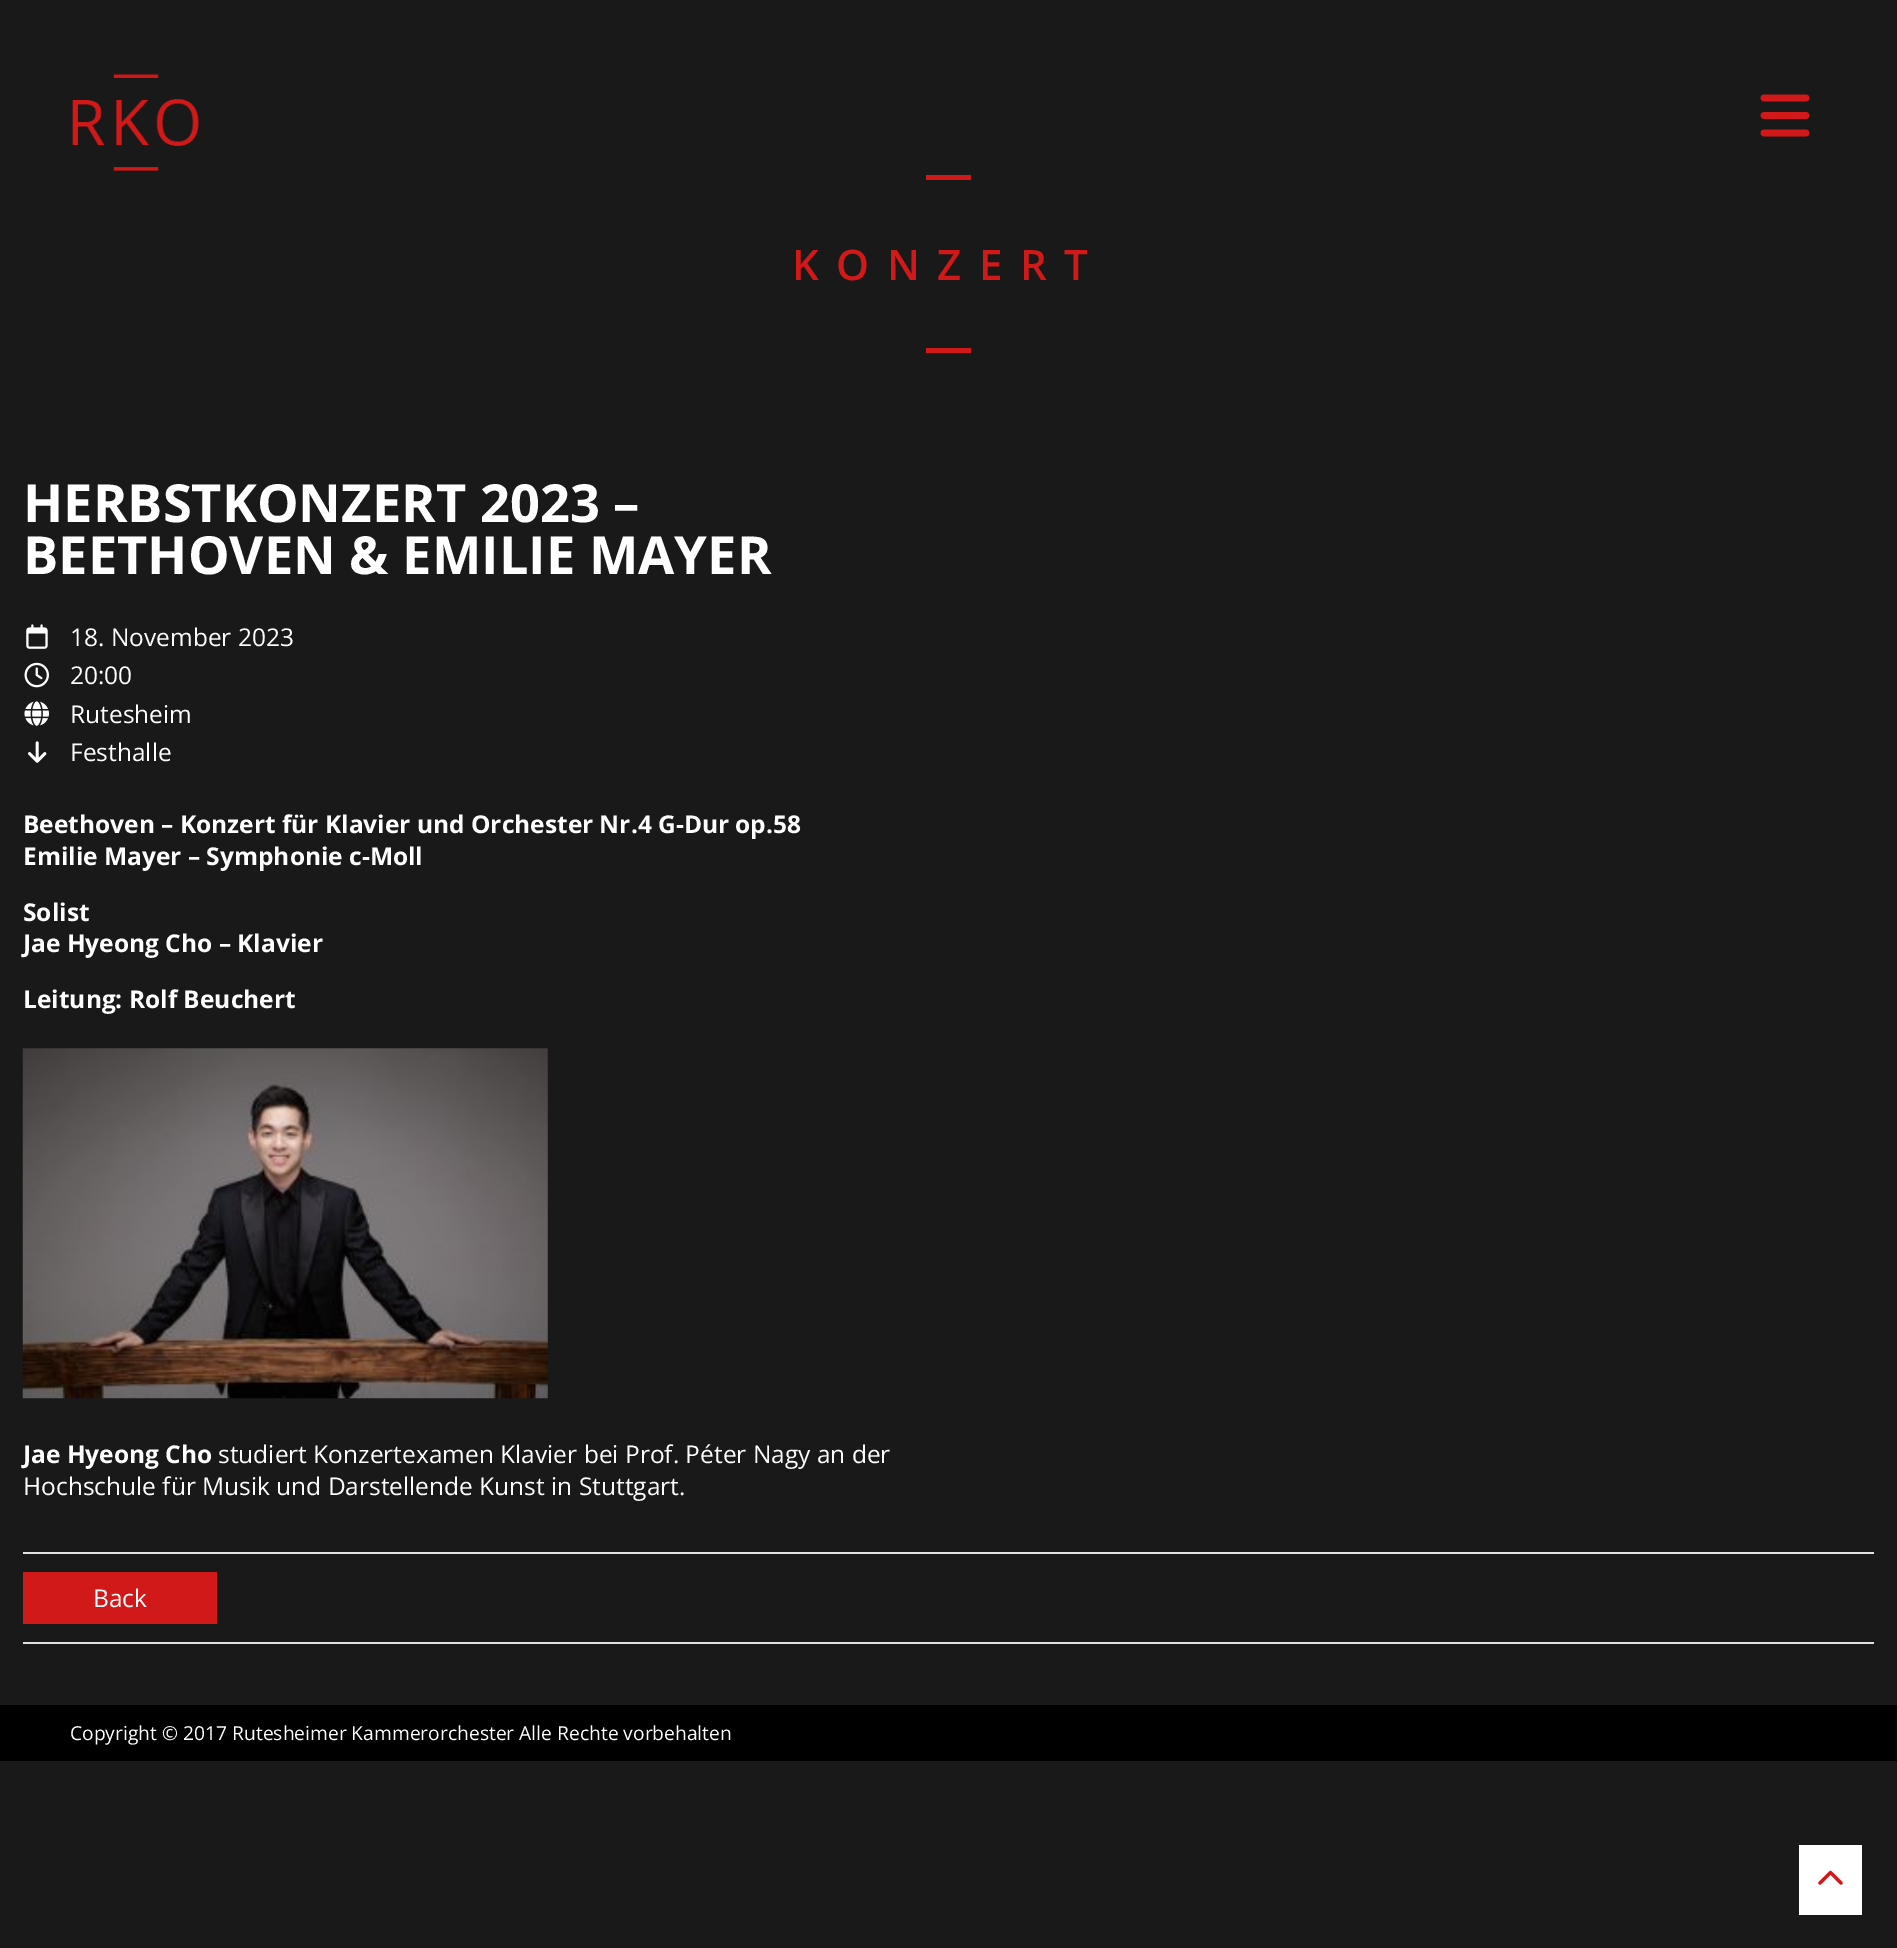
%!PS-Adobe-3.0
%%BoundingBox: 0 0 1897 1948
%%LanguageLevel: 3
%%Pages: 1
%%EndComments
%%BeginProlog
/m { moveto } bind def
/fn { [ exch dup neg 0 0 3 -1 roll 0 0 ] selectfont } def
/tx { moveto show } def
/bx { rectfill } def
/im { 5 dict begin { /h /w /y /x /name } { exch def } forall
  gsave x y translate w h scale
  w h 8 [w 0 0 h 0 0] name (r) file false 3 colorimage grestore end } def
%%EndProlog
%%BeginSetup
<< /PageSize [1897 1948] >> setpagedevice
%%EndSetup
%%Page: 1 1
0 1948 translate 1 -1 scale
4 setmiterlimit
0.098 setgray
0 0 1897 1948 bx
(image0.raw) 72 74 127 97 im
(image1.raw) 1760 94 50 43 im
0.824 0.098 0.098 setrgbcolor
926 175 45 5 bx
/OpenSans-SemiBold 42 fn
792 280 m 17.5 0 (KONZERT) ashow
926 348 45 5 bx
/OpenSans-Bold 52.5 fn
1 setgray
(HERBSTKONZERT 2023 –) 23 522 tx
(BEETHOVEN & EMILIE MAYER) 23 574 tx
(image2.raw) 26 624 22 25 im
/OpenSans-Regular 24.5 fn
(18. November 2023) 70 646 tx
(image3.raw) 24 662 25 26 im
(20:00) 70 684 tx
(image4.raw) 24 701 25 25 im
(Rutesheim) 70 723 tx
(image5.raw) 28 741 19 22 im
(Festhalle) 70 761 tx
/OpenSans-Bold 24.5 fn
(Beethoven – Konzert für Klavier und Orchester Nr.4 G-Dur op.58) 23 833 tx
(Emilie Mayer – Symphonie c-Moll) 23 865 tx
(Solist) 23 921 tx
(Jae Hyeong Cho – Klavier) 23 952 tx
(Leitung: Rolf Beuchert) 23 1008 tx
(image6.raw) 22 1048 526 351 im
(Jae Hyeong Cho) 23 1463 tx
/OpenSans-Regular 24.5 fn
(studiert Konzertexamen Klavier bei Prof. Péter Nagy an der) 218 1463 tx
(Hochschule für Musik und Darstellende Kunst in Stuttgart.) 23 1495 tx
0.886 setgray
23 1552 1851 2 bx
23 1642 1851 2 bx
0.824 0.098 0.098 setrgbcolor
23 1572 194 52 bx
1 setgray
(Back) 93 1607 tx
0 setgray
0 1705 1897 56 bx
/OpenSans-Regular 19.25 fn
1 setgray
(Copyright © 2017 Rutesheimer Kammerorchester Alle Rechte vorbehalten) 70 1740 tx
1799 1845 63 70 bx
(image7.raw) 1818 1870 25 15 im
showpage
%%EOF
